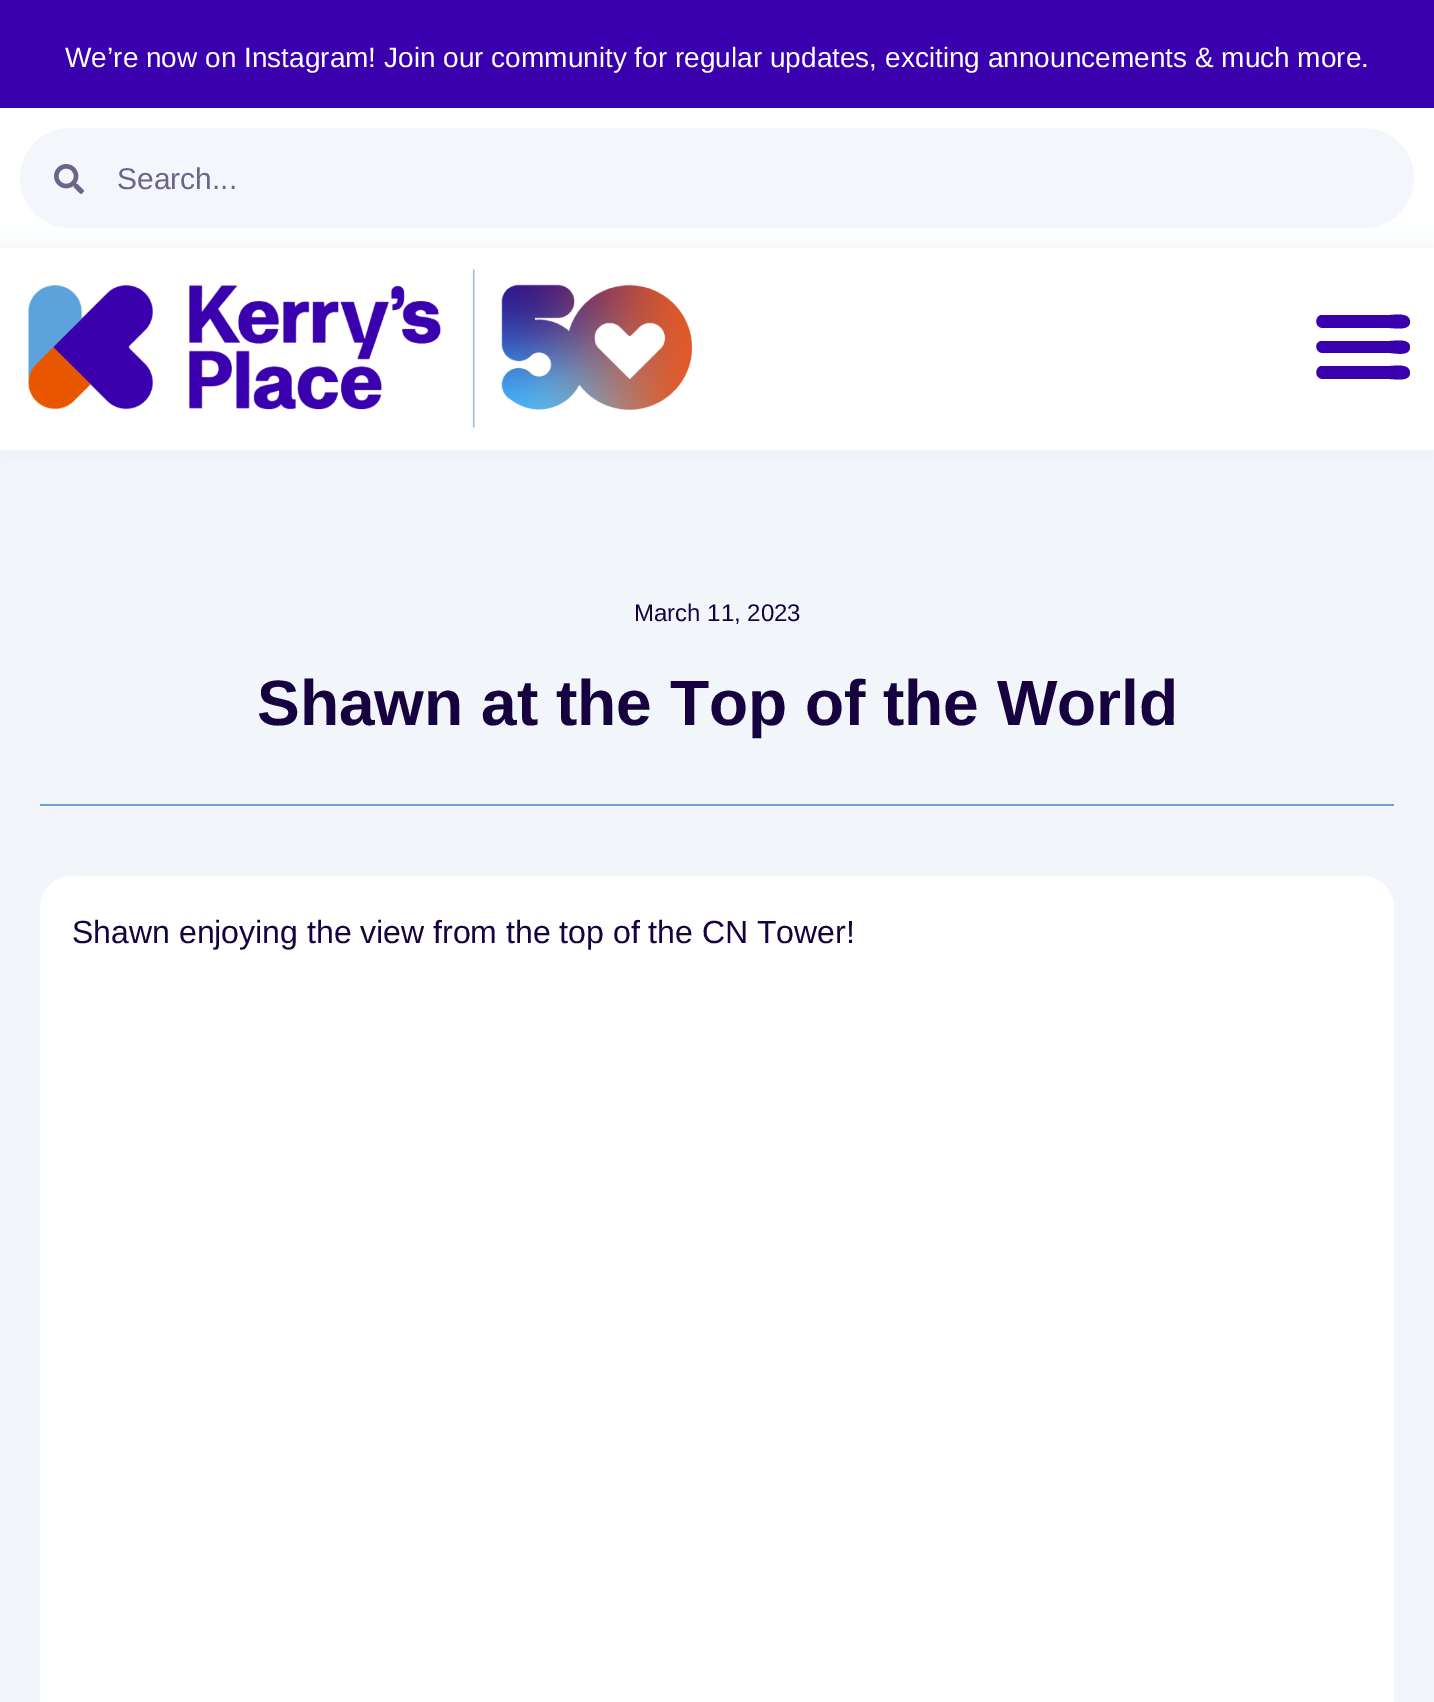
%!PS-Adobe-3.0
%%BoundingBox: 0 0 1434 1702
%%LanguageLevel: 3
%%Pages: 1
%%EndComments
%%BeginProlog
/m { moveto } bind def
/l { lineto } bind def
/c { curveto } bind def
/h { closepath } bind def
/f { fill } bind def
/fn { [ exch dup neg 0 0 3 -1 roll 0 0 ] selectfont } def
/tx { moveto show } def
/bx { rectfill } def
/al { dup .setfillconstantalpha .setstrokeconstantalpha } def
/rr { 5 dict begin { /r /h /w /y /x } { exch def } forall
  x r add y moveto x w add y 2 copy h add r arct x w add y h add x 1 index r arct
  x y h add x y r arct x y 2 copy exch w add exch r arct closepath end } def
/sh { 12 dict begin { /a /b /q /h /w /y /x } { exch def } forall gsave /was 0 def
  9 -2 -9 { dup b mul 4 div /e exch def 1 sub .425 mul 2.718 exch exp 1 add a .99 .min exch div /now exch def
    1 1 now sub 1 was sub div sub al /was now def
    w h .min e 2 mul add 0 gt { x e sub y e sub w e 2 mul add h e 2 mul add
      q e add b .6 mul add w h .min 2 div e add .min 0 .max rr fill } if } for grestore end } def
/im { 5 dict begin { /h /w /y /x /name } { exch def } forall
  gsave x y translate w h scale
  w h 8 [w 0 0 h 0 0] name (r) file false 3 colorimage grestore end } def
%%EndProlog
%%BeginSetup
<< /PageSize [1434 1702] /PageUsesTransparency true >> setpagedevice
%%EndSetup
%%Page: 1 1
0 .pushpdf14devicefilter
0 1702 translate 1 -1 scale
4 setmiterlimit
0.949 0.965 0.98 setrgbcolor
0 0 1434 1702 bx
0.231 0 0.678 setrgbcolor
0 0 1434 108 bx
/LiberationSans-Regular 28 fn
1 setgray
(We’re now on Instagram! Join our community for regular updates, exciting announcements & much more.) 65 67 tx
0 108 1434 140 bx
0.953 0.965 0.98 setrgbcolor
20 128 1394 100 50 rr f
(image0.raw) 54 164 30 30 im
/LiberationSans-Regular 30 fn
0.431 0.392 0.537 setrgbcolor
(Search...) 117 189 tx
0.875 0.914 0.949 setrgbcolor
0 248 1434 202 0 10 0.57 sh
1 setgray
0 248 1434 202 bx
(image1.raw) 28 269 664 159 im
0.231 0 0.678 setrgbcolor
1323 328 m 1390 328 l 1394 328 1410 331 1410 322 c 1410 312 1394 315 1390 315 c 1321 315 l 1314 317 1315 328 1323 328 c h 1323 353 m 1390 353 l 1394 353 1410 357 1410 347 c 1410 338 1394 341 1390 341 c 1321 341 l 1314 342 1315 353 1323 353 c h 1323 379 m 1390 379 l 1394 379 1410 382 1410 373 c 1410 363 1394 366 1390 366 c 1321 366 l 1314 368 1315 379 1323 379 c h f
/LiberationSans-Regular 24 fn
0.086 0.008 0.243 setrgbcolor
(March 11, 2023) 634 621 tx
/LiberationSans-Bold 64 fn
(Shawn at the Top of the World) 257 725 tx
0.427 0.631 0.851 setrgbcolor
40 804 1354 2 bx
1 setgray
40 876 1354 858 32 rr f
/LiberationSans-Regular 32 fn
0.086 0.008 0.243 setrgbcolor
(Shawn enjoying the view from the top of the CN Tower!) 72 943 tx
.poppdf14devicefilter showpage
%%EOF
